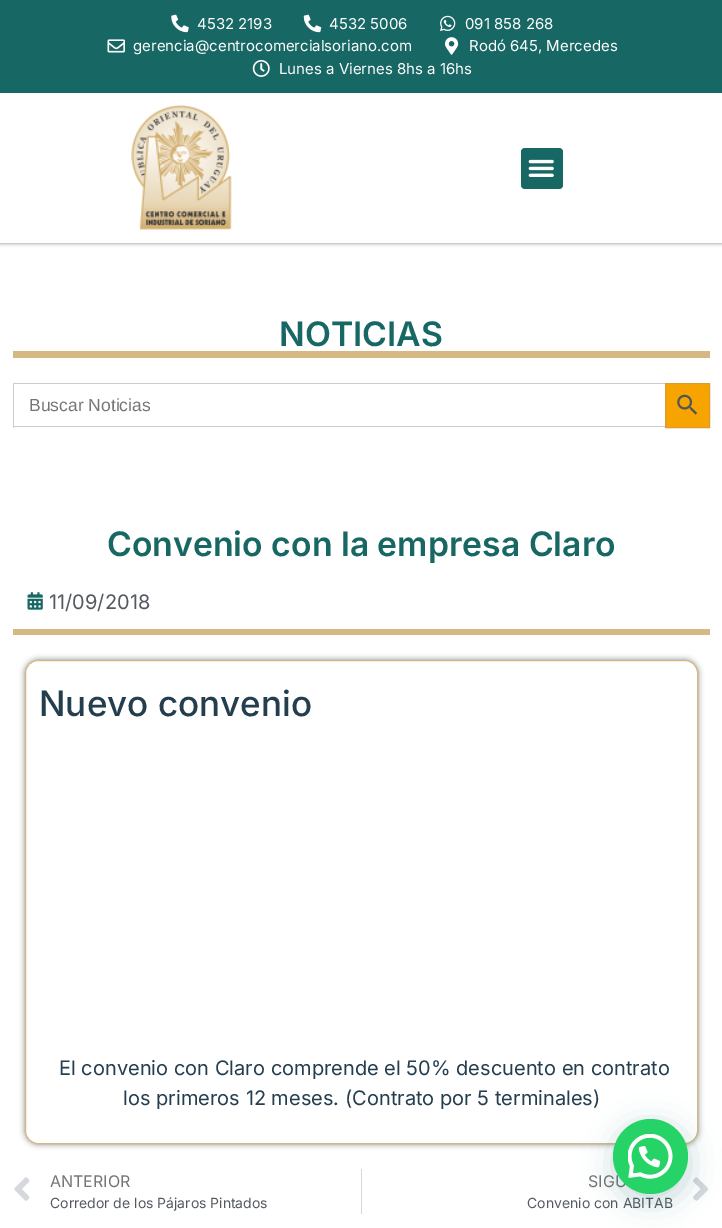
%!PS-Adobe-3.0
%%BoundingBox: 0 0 722 1228
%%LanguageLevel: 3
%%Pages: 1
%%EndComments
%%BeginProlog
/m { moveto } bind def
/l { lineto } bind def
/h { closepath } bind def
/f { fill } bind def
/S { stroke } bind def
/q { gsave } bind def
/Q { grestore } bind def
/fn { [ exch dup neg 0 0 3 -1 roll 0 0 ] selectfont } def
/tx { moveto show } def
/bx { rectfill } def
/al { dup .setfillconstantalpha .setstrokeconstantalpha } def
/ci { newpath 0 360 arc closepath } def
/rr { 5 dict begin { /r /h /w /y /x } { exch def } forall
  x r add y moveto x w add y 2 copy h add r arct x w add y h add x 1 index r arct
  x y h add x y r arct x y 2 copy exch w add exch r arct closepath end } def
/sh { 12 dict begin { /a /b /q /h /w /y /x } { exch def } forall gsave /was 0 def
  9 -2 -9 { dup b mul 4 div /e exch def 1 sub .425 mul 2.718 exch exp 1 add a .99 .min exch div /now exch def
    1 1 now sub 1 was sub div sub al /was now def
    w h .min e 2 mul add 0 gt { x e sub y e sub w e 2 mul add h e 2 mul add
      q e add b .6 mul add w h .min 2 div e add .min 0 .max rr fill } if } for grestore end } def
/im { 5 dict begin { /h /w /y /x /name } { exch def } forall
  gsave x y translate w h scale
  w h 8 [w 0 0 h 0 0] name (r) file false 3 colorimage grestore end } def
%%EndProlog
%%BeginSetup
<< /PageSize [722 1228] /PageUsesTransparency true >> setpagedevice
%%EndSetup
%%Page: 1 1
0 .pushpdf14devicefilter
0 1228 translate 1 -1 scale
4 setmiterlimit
1 setgray
0 0 722 1228 bx
q
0 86 m 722 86 l 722 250 l 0 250 l h 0 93 m 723 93 l 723 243 l 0 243 l h eoclip newpath
0 setgray
0 93 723 150 0 2 0.5 sh
Q
0.09 0.404 0.392 setrgbcolor
0 0 722 93 bx
(image0.raw) 171 14 18 19 im
/Inter-Regular 15 fn
1 setgray
(4532 2193) 197 29 tx
(image1.raw) 303 14 19 19 im
(4532 5006) 329 29 tx
(image2.raw) 440 15 16 16 im
(091 858 268) 465 29 tx
(image3.raw) 107 39 18 14 im
(gerencia@centrocomercialsoriano.com) 133 51 tx
(image4.raw) 445 37 14 18 im
(Rodó 645, Mercedes) 469 51 tx
(image5.raw) 252 60 18 17 im
(Lunes a Viernes 8hs a 16hs) 279 74 tx
(image6.raw) 131 105 101 125 im
0.09 0.404 0.392 setrgbcolor
521 148 42 41 4 rr f
(image7.raw) 528 159 26 18 im
0.831 0.725 0.518 setrgbcolor
13 351 697 7 bx
/Inter-SemiBold 33.75 fn
0.09 0.404 0.392 setrgbcolor
(NOTICIAS) 279 346 tx
0.8 setgray
13 383 652 1 bx
13 426 652 1 bx
13 383 1 45 bx
/LiberationSans-Regular 17.5 fn
0.459 setgray
(Buscar Noticias) 29 411 tx
0.969 0.643 0 setrgbcolor
665.5 383.5 m 709.5 383.5 l 709.5 427.5 l 665.5 427.5 l h q f Q
0.867 0.6 0.2 setrgbcolor
S
(image8.raw) 677 394 21 21 im
0.831 0.725 0.518 setrgbcolor
13 629 697 6 bx
/Inter-SemiBold 33.75 fn
0.09 0.404 0.392 setrgbcolor
(Convenio con la empresa Claro) 107 556 tx
(image9.raw) 27 592 16 18 im
/Inter-Regular 20 fn
0.329 0.349 0.373 setrgbcolor
(11/09/2018) 49 609 tx
0 setgray
25 660 673 484 13 3 0.5 sh
1 setgray
25.5 660.5 672 483 12.5 rr q f Q
0.831 0.725 0.518 setrgbcolor
S
/Inter-Medium 35 fn
0.141 0.243 0.31 setrgbcolor
(Nuevo convenio) 39 716 tx
/Inter-Regular 20 fn
(El convenio con Claro comprende el 50% descuento en contrato) 59 1075 tx
(los primeros 12 meses. \(Contrato por 5 terminales\)) 123 1105 tx
(image10.raw) 14 1177 16 24 im
/Inter-Regular 16 fn
0.459 setgray
(ANTERIOR) 50 1187 tx
/Inter-Regular 14 fn
0.329 0.349 0.373 setrgbcolor
(Corredor de los Pájaros Pintados) 50 1208 tx
0.835 0.847 0.863 setrgbcolor
361 1169 1 45 bx
/Inter-Regular 16 fn
0.459 setgray
(SIGU) 588 1187 tx
/Inter-Regular 14 fn
0.329 0.349 0.373 setrgbcolor
(Convenio con ABITAB) 527 1208 tx
(image11.raw) 693 1177 15 24 im
0.027 0.369 0.329 setrgbcolor
614 1126 75 75 37.5 15 0.24 sh
0.145 0.827 0.4 setrgbcolor
650.5 1156.5 37.5 ci f
(image12.raw) 628 1134 45 45 im
.poppdf14devicefilter showpage
%%EOF
